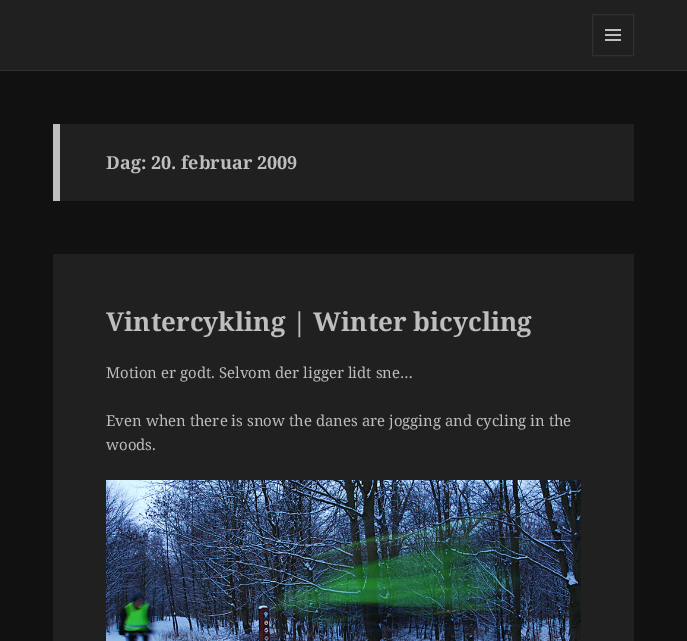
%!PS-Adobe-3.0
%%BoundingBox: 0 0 687 641
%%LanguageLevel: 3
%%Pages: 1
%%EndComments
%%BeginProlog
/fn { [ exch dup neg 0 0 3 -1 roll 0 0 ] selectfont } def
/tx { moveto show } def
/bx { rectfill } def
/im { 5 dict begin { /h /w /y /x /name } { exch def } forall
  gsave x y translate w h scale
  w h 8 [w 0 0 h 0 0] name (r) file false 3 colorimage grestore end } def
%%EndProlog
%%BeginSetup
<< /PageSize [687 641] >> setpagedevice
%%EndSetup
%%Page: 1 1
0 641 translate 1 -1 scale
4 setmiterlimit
0.067 setgray
0 0 687 641 bx
0.125 setgray
0 0 687 70 bx
0.188 setgray
0 70 687 1 bx
592.5 14.5 41 41 rectstroke
(image0.raw) 605 29 16 12 im
0.125 setgray
60 124 574 77 bx
0.745 setgray
53 124 7 77 bx
/NotoSerif-Bold 18 fn
(Dag: 20. februar 2009) 106 169 tx
0.125 setgray
53 254 581 387 bx
/NotoSerif-Bold 26 fn
0.745 setgray
(Vintercykling | Winter bicycling) 106 331 tx
/NotoSerif-Regular 15 fn
(Motion er godt. Selvom der ligger lidt sne…) 106 378 tx
(Even when there is snow the danes are jogging and cycling in the) 106 426 tx
(woods.) 106 450 tx
(image1.raw) 106 480 475 161 im
showpage
%%EOF
